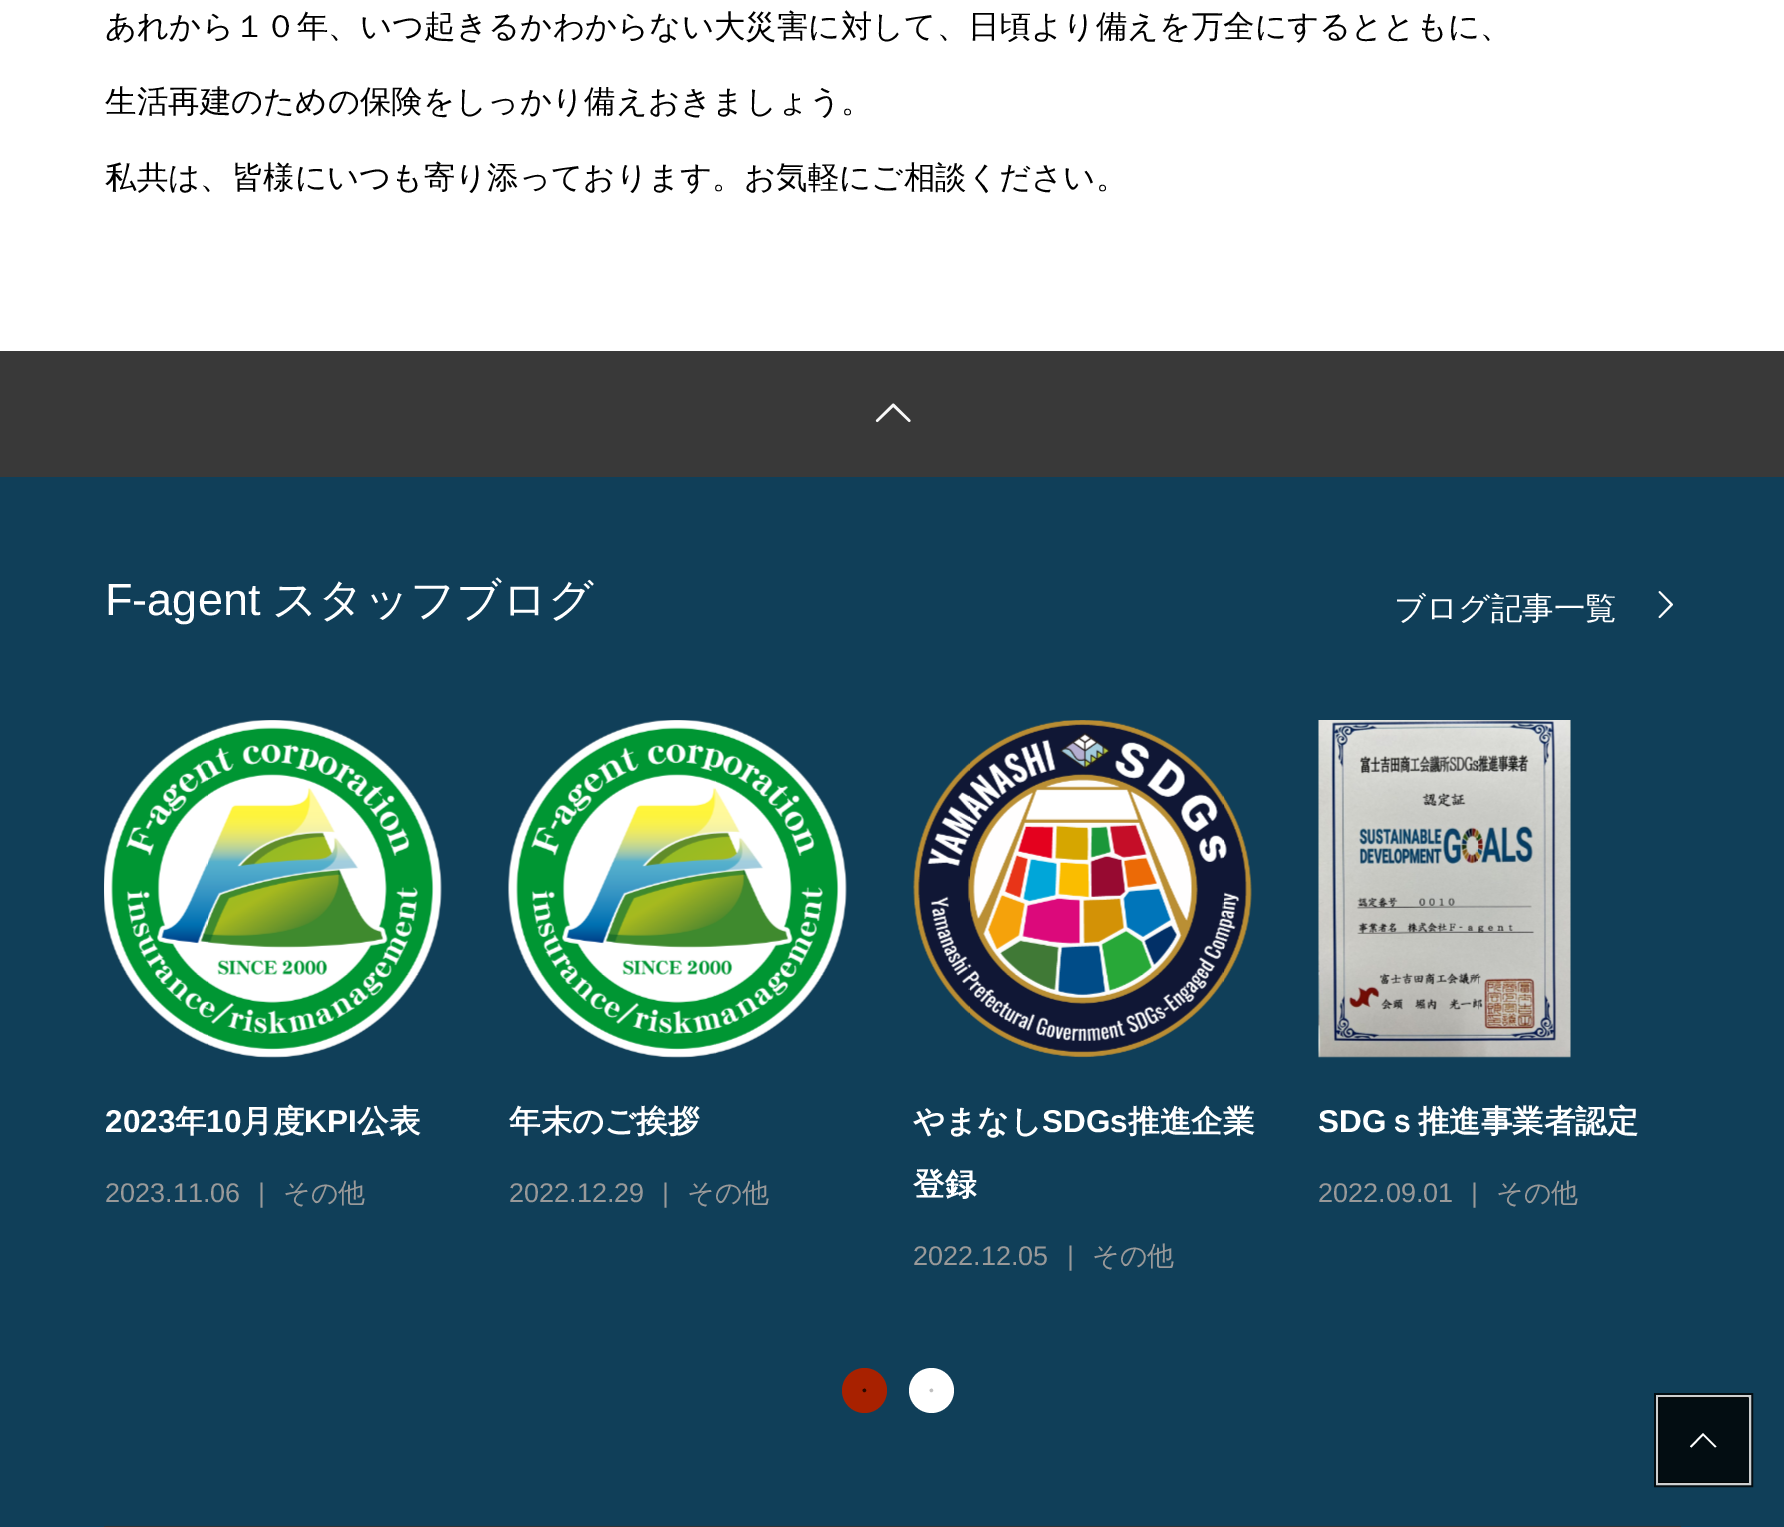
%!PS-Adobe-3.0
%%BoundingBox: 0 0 1784 1527
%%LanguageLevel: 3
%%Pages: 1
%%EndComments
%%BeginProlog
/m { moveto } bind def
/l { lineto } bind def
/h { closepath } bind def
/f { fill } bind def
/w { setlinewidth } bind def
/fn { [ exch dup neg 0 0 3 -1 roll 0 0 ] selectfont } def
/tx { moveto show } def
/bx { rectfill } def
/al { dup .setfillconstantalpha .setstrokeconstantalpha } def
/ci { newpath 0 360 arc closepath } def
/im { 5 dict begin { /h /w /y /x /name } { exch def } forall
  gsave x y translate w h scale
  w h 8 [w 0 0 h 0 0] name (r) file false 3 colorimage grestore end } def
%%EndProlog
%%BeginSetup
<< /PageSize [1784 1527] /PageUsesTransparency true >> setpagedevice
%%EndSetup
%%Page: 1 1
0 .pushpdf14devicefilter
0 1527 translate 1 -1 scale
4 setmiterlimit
1 setgray
0 0 1784 1527 bx
/WenQuanYiZenHei-Medium 31.5 fn
0 setgray
(あれから１０年、いつ起きるかわからない大災害に対して、日頃より備えを万全にするとともに、) 105 37 tx
(生活再建のための保険をしっかり備えおきましょう。) 105 112 tx
(私共は、皆様にいつも寄り添っております。お気軽にご相談ください。) 105 188 tx
0.224 setgray
0 351 1784 126 bx
(image0.raw) 875 403 36 20 im
0.063 0.247 0.349 setrgbcolor
0 477 1784 1050 bx
0.2 setgray
104 1526 1577 1 bx
/LiberationSans-Regular 45 fn
1 setgray
(F-agent) 105 615 tx
/WenQuanYiZenHei-Medium 45 fn
(スタッフブログ) 272 615 tx
/WenQuanYiZenHei-Medium 31.5 fn
(ブログ記事一覧) 1394 619 tx
(image1.raw) 1658 591 15 28 im
(image2.raw) 104 720 338 338 im
/LiberationSans-Bold 31.5 fn
(2023) 105 1132 tx
/WenQuanYiZenHei-Bold 31.5 fn
(年) 175 1132 tx
/LiberationSans-Bold 31.5 fn
(10) 206 1132 tx
/WenQuanYiZenHei-Bold 31.5 fn
(月度) 241 1132 tx
/LiberationSans-Bold 31.5 fn
(KPI) 304 1132 tx
/WenQuanYiZenHei-Bold 31.5 fn
(公表) 357 1132 tx
/LiberationSans-Regular 27 fn
0.6 setgray
(2023.11.06) 105 1202 tx
(|) 258 1202 tx
/WenQuanYiZenHei-Medium 27 fn
(その他) 283 1202 tx
(image3.raw) 508 720 339 338 im
/WenQuanYiZenHei-Bold 31.5 fn
1 setgray
(年末のご挨拶) 509 1132 tx
/LiberationSans-Regular 27 fn
0.6 setgray
(2022.12.29) 509 1202 tx
(|) 662 1202 tx
/WenQuanYiZenHei-Medium 27 fn
(その他) 687 1202 tx
(image4.raw) 913 720 339 338 im
/WenQuanYiZenHei-Bold 31.5 fn
1 setgray
(やまなし) 913 1132 tx
/LiberationSans-Bold 31.5 fn
(SDGs) 1042 1132 tx
/WenQuanYiZenHei-Bold 31.5 fn
(推進企業) 1128 1132 tx
(登録) 913 1195 tx
/LiberationSans-Regular 27 fn
0.6 setgray
(2022.12.05) 913 1265 tx
(|) 1067 1265 tx
/WenQuanYiZenHei-Medium 27 fn
(その他) 1092 1265 tx
(image5.raw) 1318 720 253 338 im
/LiberationSans-Bold 31.5 fn
1 setgray
(SDG) 1318 1132 tx
/WenQuanYiZenHei-Bold 31.5 fn
(ｓ推進事業者認定) 1386 1132 tx
/LiberationSans-Regular 27 fn
0.6 setgray
(2022.09.01) 1318 1202 tx
(|) 1471 1202 tx
/WenQuanYiZenHei-Medium 27 fn
(その他) 1496 1202 tx
0.659 0.129 0 setrgbcolor
864.5 1390.5 22.5 ci f
/LiberationSans-Regular 14 fn
0.165 0.031 0 setrgbcolor
(•) 862 1395 tx
1 setgray
931.5 1390.5 22.5 ci f
0.749 setgray
(•) 929 1395 tx
0.012 0.051 0.071 setrgbcolor
5 w
1656.5 1395.5 94 89 rectstroke
0.804 0.812 0.816 setrgbcolor
2 w
1657 1396 93 88 rectstroke
0.8 al
0 setgray
1658 1397 90 86 bx
1 al
1 setgray
1716.5 1446.5 m 1715 1447.5 l 1703 1435.5 l 1691.5 1447.5 l 1690 1446.5 l 1703 1433 l h f
.poppdf14devicefilter showpage
%%EOF
